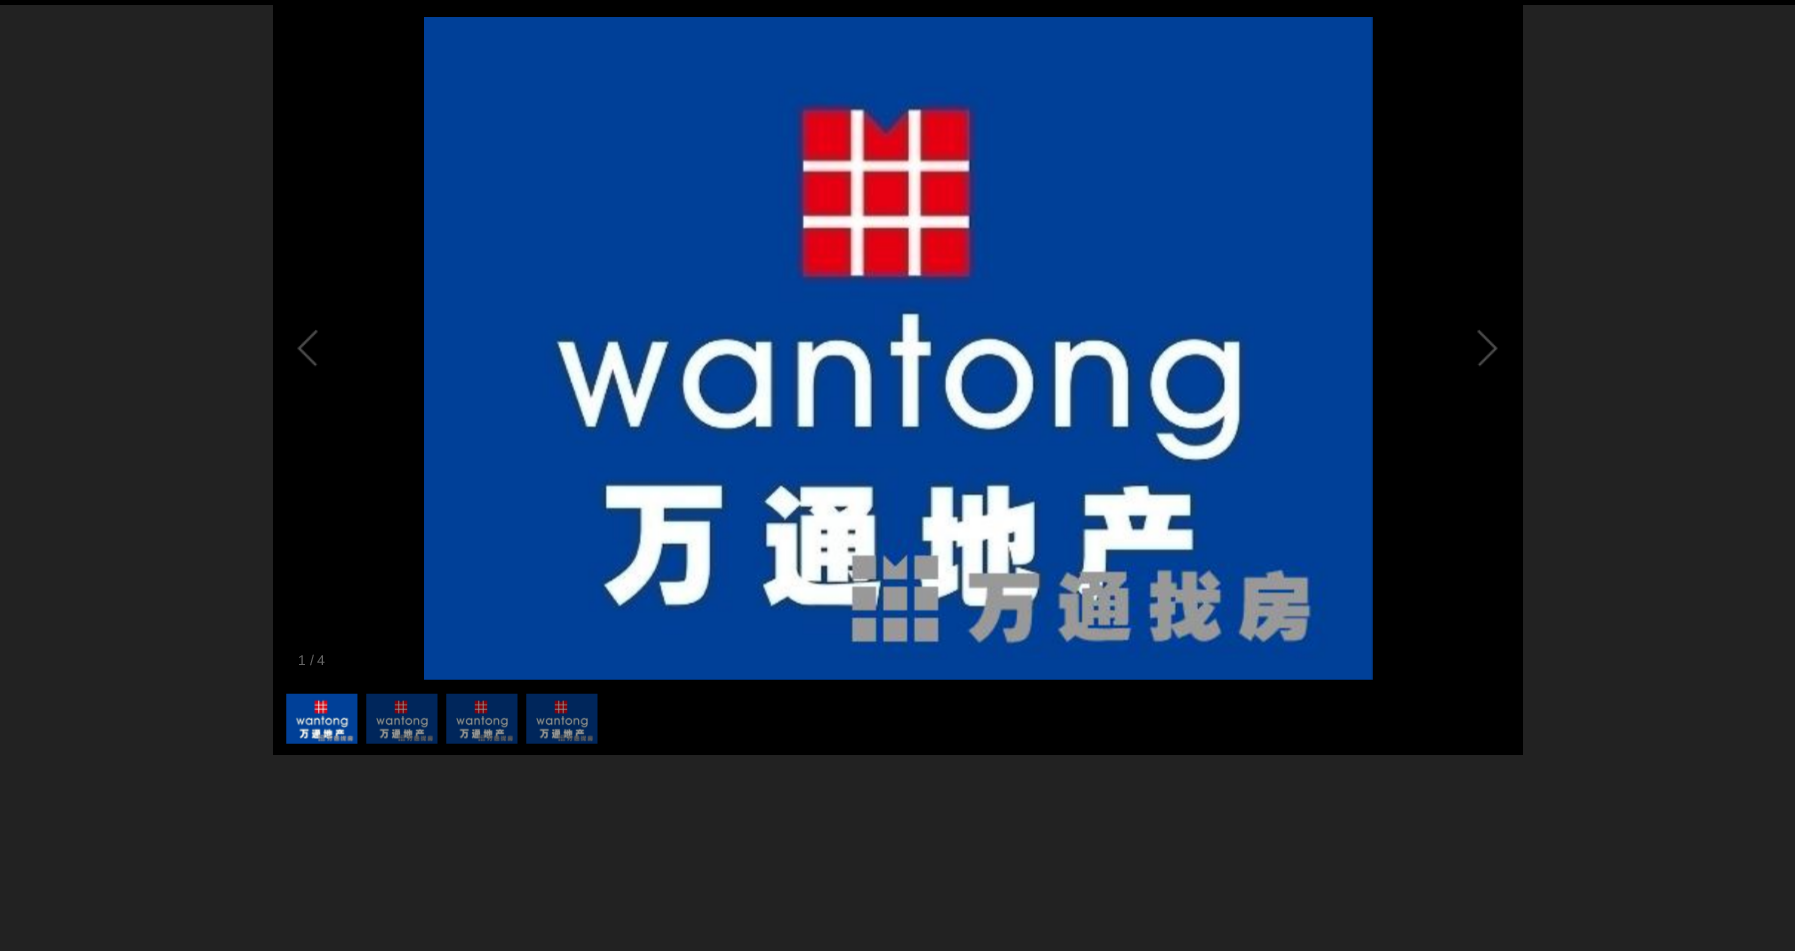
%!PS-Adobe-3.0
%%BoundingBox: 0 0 1795 951
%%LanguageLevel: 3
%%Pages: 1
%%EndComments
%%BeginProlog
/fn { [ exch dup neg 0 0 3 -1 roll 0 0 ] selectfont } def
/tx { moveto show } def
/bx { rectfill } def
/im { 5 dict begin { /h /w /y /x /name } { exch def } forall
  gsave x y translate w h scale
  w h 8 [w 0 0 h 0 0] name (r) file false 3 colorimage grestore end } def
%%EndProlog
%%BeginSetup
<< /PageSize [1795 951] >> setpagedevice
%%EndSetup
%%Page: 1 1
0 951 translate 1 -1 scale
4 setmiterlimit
0.133 setgray
0 0 1795 951 bx
0 setgray
0 0 1795 5 bx
273 5 1250 750 bx
(image0.raw) 424 17 949 663 im
(image1.raw) 297 329 21 38 im
(image2.raw) 1477 329 21 38 im
/LiberationSans-Regular 14 fn
0.4 setgray
(1 / 4) 298 665 tx
(image3.raw) 286 693 72 51 im
(image4.raw) 366 693 72 51 im
(image4.raw) 446 693 72 51 im
(image4.raw) 526 693 72 51 im
showpage
%%EOF
